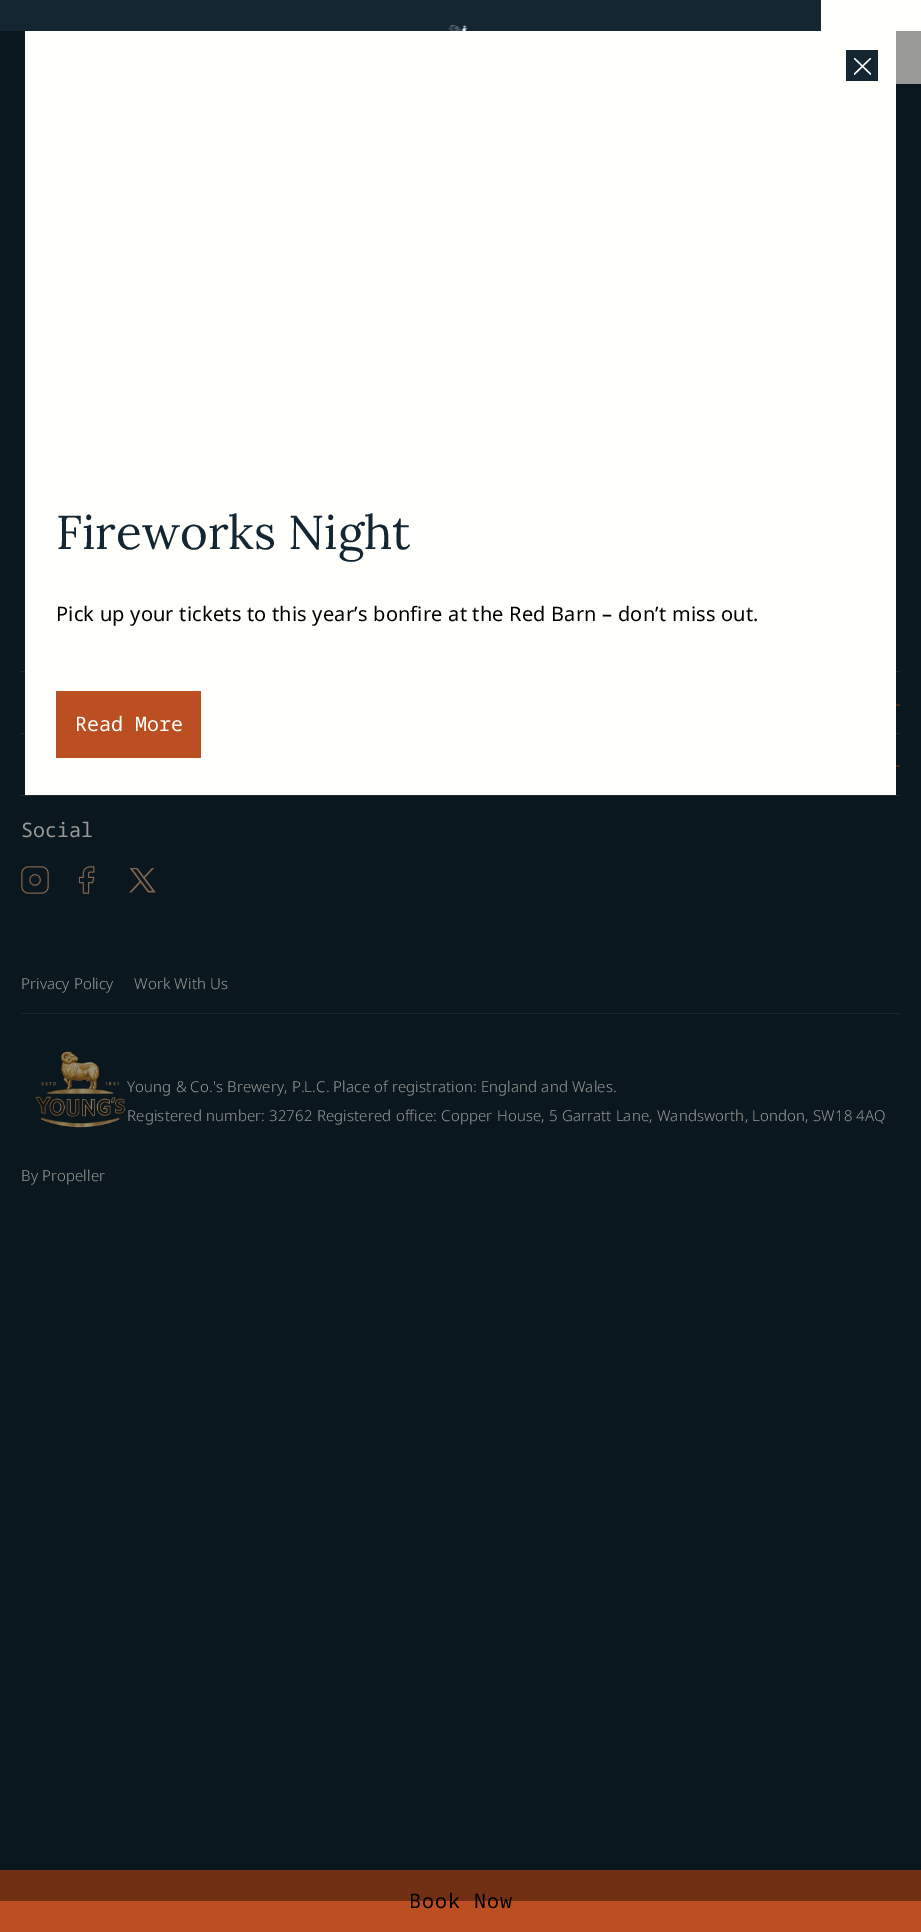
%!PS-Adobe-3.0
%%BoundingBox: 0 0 921 1932
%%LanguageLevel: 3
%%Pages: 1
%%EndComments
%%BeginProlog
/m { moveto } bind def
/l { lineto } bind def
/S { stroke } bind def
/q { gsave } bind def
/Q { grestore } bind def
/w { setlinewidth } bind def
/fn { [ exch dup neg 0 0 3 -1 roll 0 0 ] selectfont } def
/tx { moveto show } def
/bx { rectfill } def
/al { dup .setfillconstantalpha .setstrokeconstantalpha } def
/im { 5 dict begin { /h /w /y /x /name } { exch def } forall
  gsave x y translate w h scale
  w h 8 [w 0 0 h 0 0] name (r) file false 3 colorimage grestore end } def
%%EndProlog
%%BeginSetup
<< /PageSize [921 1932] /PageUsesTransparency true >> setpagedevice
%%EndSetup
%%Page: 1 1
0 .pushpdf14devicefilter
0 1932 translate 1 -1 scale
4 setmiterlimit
0.075 0.149 0.196 setrgbcolor
0 0 921 1932 bx
(image0.raw) 448 25 21 6 im
1 1 0.984 setrgbcolor
821 0 100 84 bx
0.212 0.278 0.314 setrgbcolor
21 671 879 1 bx
21 733 879 1 bx
0.737 0.31 0.133 setrgbcolor
0.9 w
886 691 m 886 719 l 900 705 m 872.5 705 l S
0.212 0.278 0.314 setrgbcolor
21 795 879 1 bx
0.737 0.31 0.133 setrgbcolor
886 752.5 m 886 780 l 900 766 m 872.5 766 l S
/NotoSansMono-Regular 20 fn
1 1 0.984 setrgbcolor
(Social) 21 837 tx
(image1.raw) 21 866 28 28 im
(image2.raw) 79 866 16 28 im
(image3.raw) 129 868 27 25 im
0.169 0.235 0.275 setrgbcolor
21 1013 879 1 bx
/NotoSans-Light 15 fn
1 1 0.984 setrgbcolor
21 989 m 0.15 0 (Privacy Policy) ashow
134 989 m 0.15 0 (Work With Us) ashow
(image4.raw) 35 1051 91 77 im
127 1092 m 0.15 0 (Young & Co.'s Brewery, P.L.C. Place of registration: England and Wales.) ashow
127 1121 m 0.15 0 (Registered number: 32762 Registered office: Copper House, 5 Garratt Lane, Wandsworth, London, SW18 4AQ) ashow
21 1181 m 0.15 0 (By Propeller) ashow
0.737 0.31 0.133 setrgbcolor
0 1870 921 62 bx
/NotoSansMono-Regular 20 fn
0 setgray
409 1908 m 1 0 (Book Now) ashow
0.4 al
0 31 921 1870 bx
1 al
1 1 0.984 setrgbcolor
25 31 871 764 bx
0.075 0.149 0.196 setrgbcolor
846 50 32 31 bx
q
854 58 17 17 rectclip
1 1 0.984 setrgbcolor
1.3 w
854 58 m 871 74.5 l 871 58 m 854 74.5 l S
Q
/Lora-Regular 47.5 fn
(Fireworks Night) 56 549 tx
/NotoSans-Regular 20 fn
0 setgray
56 621 m 0.2 0 (Pick up your tickets to this year’s bonfire at the Red Barn – don’t miss out.) ashow
0.737 0.31 0.133 setrgbcolor
56 691 145 67 bx
/NotoSansMono-Regular 20 fn
1 1 0.984 setrgbcolor
(Read More) 75 731 tx
.poppdf14devicefilter showpage
%%EOF
